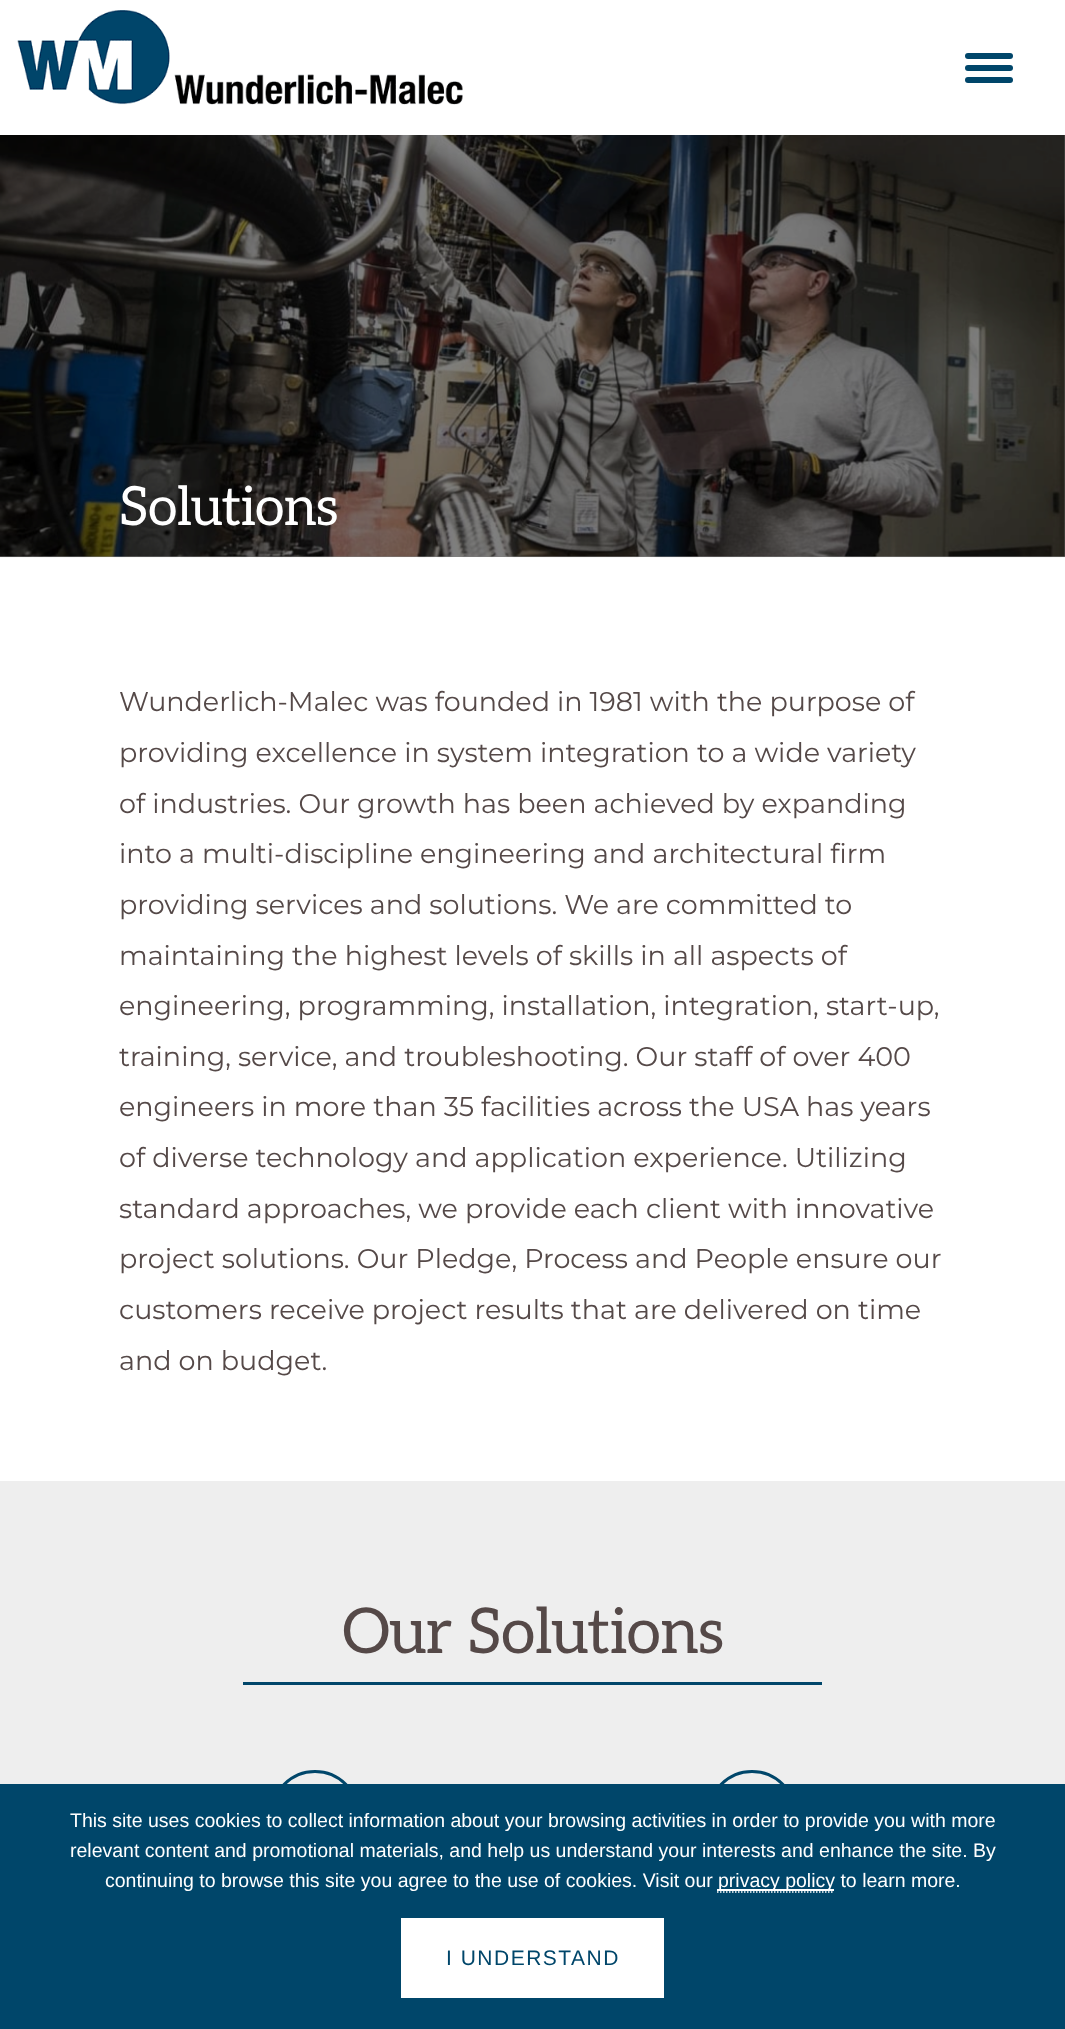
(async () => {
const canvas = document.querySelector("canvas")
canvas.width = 1065
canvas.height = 2029
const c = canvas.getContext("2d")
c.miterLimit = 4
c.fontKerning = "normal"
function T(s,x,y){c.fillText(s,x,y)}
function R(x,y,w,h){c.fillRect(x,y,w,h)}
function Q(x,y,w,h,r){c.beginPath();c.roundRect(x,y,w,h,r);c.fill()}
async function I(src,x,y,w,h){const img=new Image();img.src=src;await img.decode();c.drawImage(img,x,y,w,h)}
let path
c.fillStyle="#fff"
R(0,0,1065,2029)
c.fillStyle="#808080"
R(0,135,1065,422)
await I("1.png",17,10,446,95)
c.fillStyle="#00466a"
Q(965,53,48,6,3)
Q(965,65,48,6,3)
Q(965,77,48,6,3)
await I("2.png",0,135,1065,423)
c.letterSpacing="-0.75px"
c.font="54px Aleo"
c.fillStyle="#fff"
T("Solutions",119,525)
c.letterSpacing="0px"
c.font="27px Montserrat"
c.fillStyle="#554948"
T("Wunderlich-Malec was founded in 1981 with the purpose of",119,711)
T("providing excellence in system integration to a wide variety",119,762)
T("of industries. Our growth has been achieved by expanding",119,813)
T("into a multi-discipline engineering and architectural firm",119,863)
T("providing services and solutions. We are committed to",119,914)
T("maintaining the highest levels of skills in all aspects of",119,965)
T("engineering, programming, installation, integration, start-up,",119,1015)
T("training, service, and troubleshooting. Our staff of over 400",119,1066)
T("engineers in more than 35 facilities across the USA has years",119,1116)
T("of diverse technology and application experience. Utilizing",119,1167)
T("standard approaches, we provide each client with innovative",119,1218)
T("project solutions. Our Pledge, Process and People ensure our",119,1268)
T("customers receive project results that are delivered on time",119,1319)
T("and on budget.",119,1370)
c.fillStyle="#eee"
R(0,1481,1065,303)
c.letterSpacing="-0.75px"
c.font="63px Aleo"
c.fillStyle="#554948"
T("Our Solutions",342,1653)
c.fillStyle="#00466a"
R(243,1682,579,3)
c.beginPath()
c.arc(315,1815,43.5,0,7)
c.strokeStyle="#00466a"
c.lineWidth=3
c.stroke()
c.beginPath()
c.arc(752,1815,43.5,0,7)
c.stroke()
R(0,1784,1065,245)
c.letterSpacing="0px"
c.font="19.5px Liberation Sans"
c.fillStyle="#fff"
T("This site uses cookies to collect information about your browsing activities in order to provide you with more",70,1827)
T("relevant content and promotional materials, and help us understand your interests and enhance the site. By",70,1857)
T("continuing to browse this site you agree to the use of cookies. Visit our",105,1887)
path = new Path2D("M717 1892h117")
c.strokeStyle="#fff"
c.lineWidth=1.5
c.setLineDash([1.5,1.5])
c.stroke(path)
R(717,1889,117,2)
T("privacy policy to learn more.",718,1887)
R(401,1918,263,80)
c.letterSpacing="1.5px"
c.font="21px Liberation Sans"
c.fillStyle="#00466a"
T("I UNDERSTAND",446,1965)
})()
